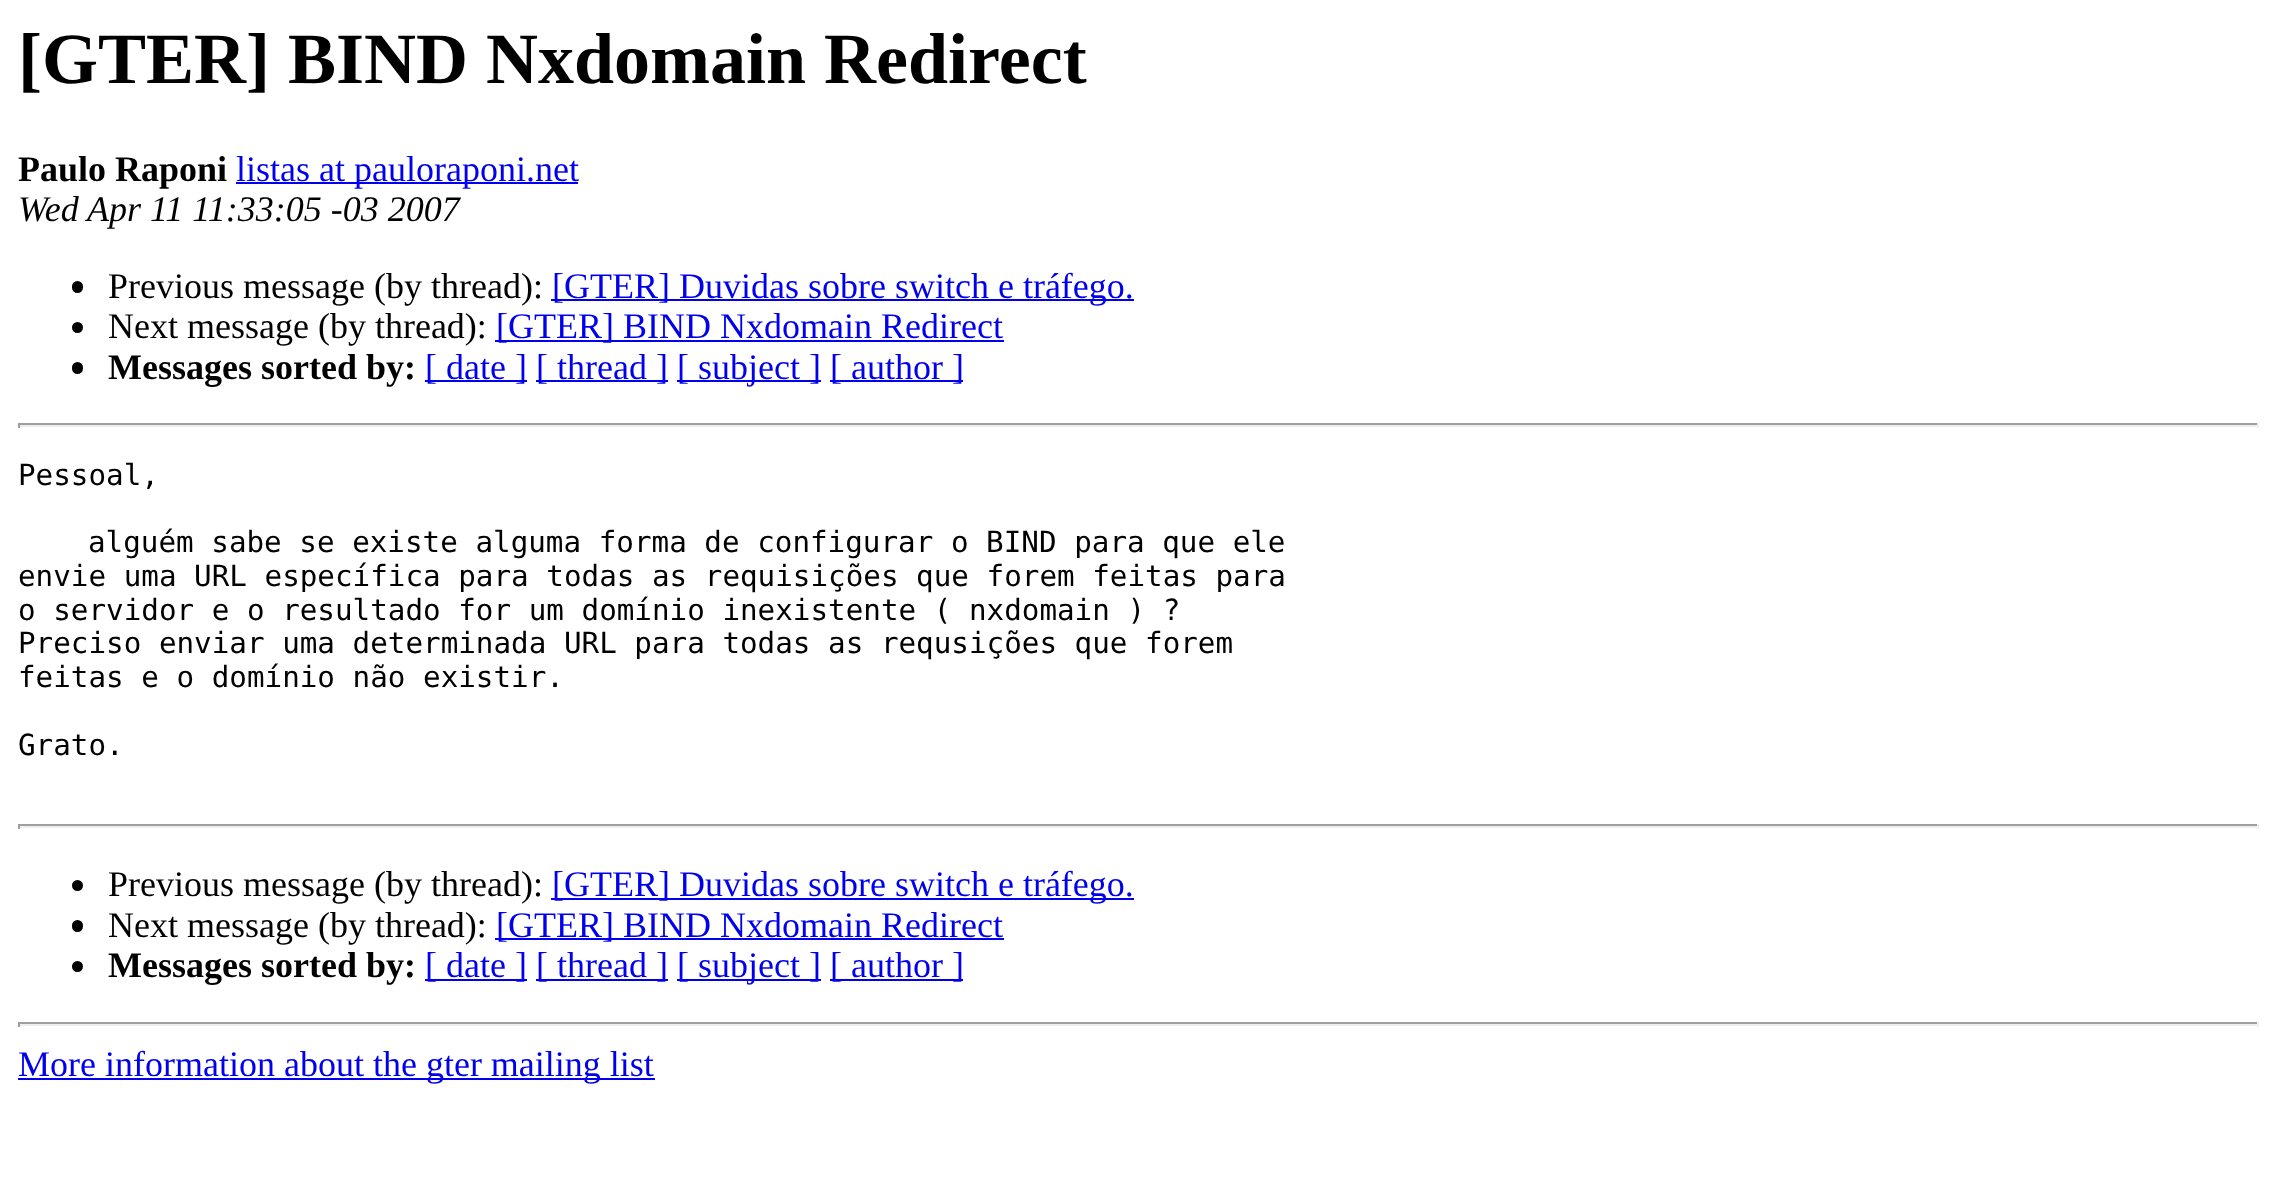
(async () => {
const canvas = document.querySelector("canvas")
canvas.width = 2277
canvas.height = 1177
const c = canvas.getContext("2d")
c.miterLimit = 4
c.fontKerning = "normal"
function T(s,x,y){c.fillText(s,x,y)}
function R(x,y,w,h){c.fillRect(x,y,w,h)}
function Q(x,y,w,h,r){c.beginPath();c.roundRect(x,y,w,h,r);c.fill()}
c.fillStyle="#fff"
R(0,0,2277,1177)
c.font="bold 72px Liberation Serif"
c.fillStyle="#000"
T("[GTER] BIND Nxdomain Redirect",18,83)
c.font="bold 36px Liberation Serif"
T("Paulo Raponi",18,181)
c.fillStyle="#00e"
R(236,182,342,2)
c.font="36px Liberation Serif"
T("listas at pauloraponi.net",236,181)
c.font="italic 36px Liberation Serif"
c.fillStyle="#000"
T("Wed Apr 11 11:33:05 -03 2007",18,221)
Q(72,281,11,12,5.5)
c.font="36px Liberation Serif"
T("Previous message (by thread):",108,298)
c.fillStyle="#00e"
R(551,299,583,2)
T("[GTER] Duvidas sobre switch e tráfego.",552,298)
c.fillStyle="#000"
c.beginPath()
c.arc(77.5,327.5,5.5,0,7)
c.fill()
T("Next message (by thread):",108,338)
c.fillStyle="#00e"
R(495,340,509,2)
T("[GTER] BIND Nxdomain Redirect",496,338)
c.fillStyle="#000"
Q(72,362,11,12,5.5)
c.font="bold 36px Liberation Serif"
T("Messages sorted by:",108,379)
c.fillStyle="#00e"
R(425,380,102,2)
c.font="36px Liberation Serif"
T("[ date ]",425,379)
R(536,380,132,2)
T("[ thread ]",536,379)
R(677,380,144,2)
T("[ subject ]",677,379)
R(830,380,133,2)
T("[ author ]",830,379)
c.fillStyle="#9f9f9f"
R(18,423,2241,2)
c.fillStyle="#eee"
R(2257,423,2,5)
R(18,425,2241,2)
c.fillStyle="#9f9f9f"
R(18,423,2,5)
c.font="29.25px DejaVu Sans Mono"
c.fillStyle="#000"
T("Pessoal,",18,485)
T("alguém sabe se existe alguma forma de configurar o BIND para que ele",88,552)
T("envie uma URL específica para todas as requisições que forem feitas para",18,586)
T("o servidor e o resultado for um domínio inexistente ( nxdomain ) ?",18,620)
T("Preciso enviar uma determinada URL para todas as requsições que forem",18,653)
T("feitas e o domínio não existir.",18,687)
T("Grato.",18,755)
c.fillStyle="#9f9f9f"
R(18,824,2241,2)
c.fillStyle="#eee"
R(2257,824,2,5)
R(18,826,2241,2)
c.fillStyle="#9f9f9f"
R(18,824,2,5)
c.fillStyle="#000"
c.beginPath()
c.arc(77.5,885.5,5.5,0,7)
c.fill()
c.font="36px Liberation Serif"
T("Previous message (by thread):",108,896)
c.fillStyle="#00e"
R(551,898,583,2)
T("[GTER] Duvidas sobre switch e tráfego.",552,896)
c.fillStyle="#000"
Q(72,920,11,12,5.5)
T("Next message (by thread):",108,937)
c.fillStyle="#00e"
R(495,938,509,2)
T("[GTER] BIND Nxdomain Redirect",496,937)
c.fillStyle="#000"
c.beginPath()
c.arc(77.5,966.5,5.5,0,7)
c.fill()
c.font="bold 36px Liberation Serif"
T("Messages sorted by:",108,977)
c.fillStyle="#00e"
R(425,979,102,2)
c.font="36px Liberation Serif"
T("[ date ]",425,977)
R(536,979,132,2)
T("[ thread ]",536,977)
R(677,979,144,2)
T("[ subject ]",677,977)
R(830,979,133,2)
T("[ author ]",830,977)
c.fillStyle="#9f9f9f"
R(18,1022,2241,2)
c.fillStyle="#eee"
R(2257,1022,2,5)
R(18,1024,2241,2)
c.fillStyle="#9f9f9f"
R(18,1022,2,5)
c.fillStyle="#00e"
R(18,1078,637,2)
T("More information about the gter mailing list",18,1076)
})()
